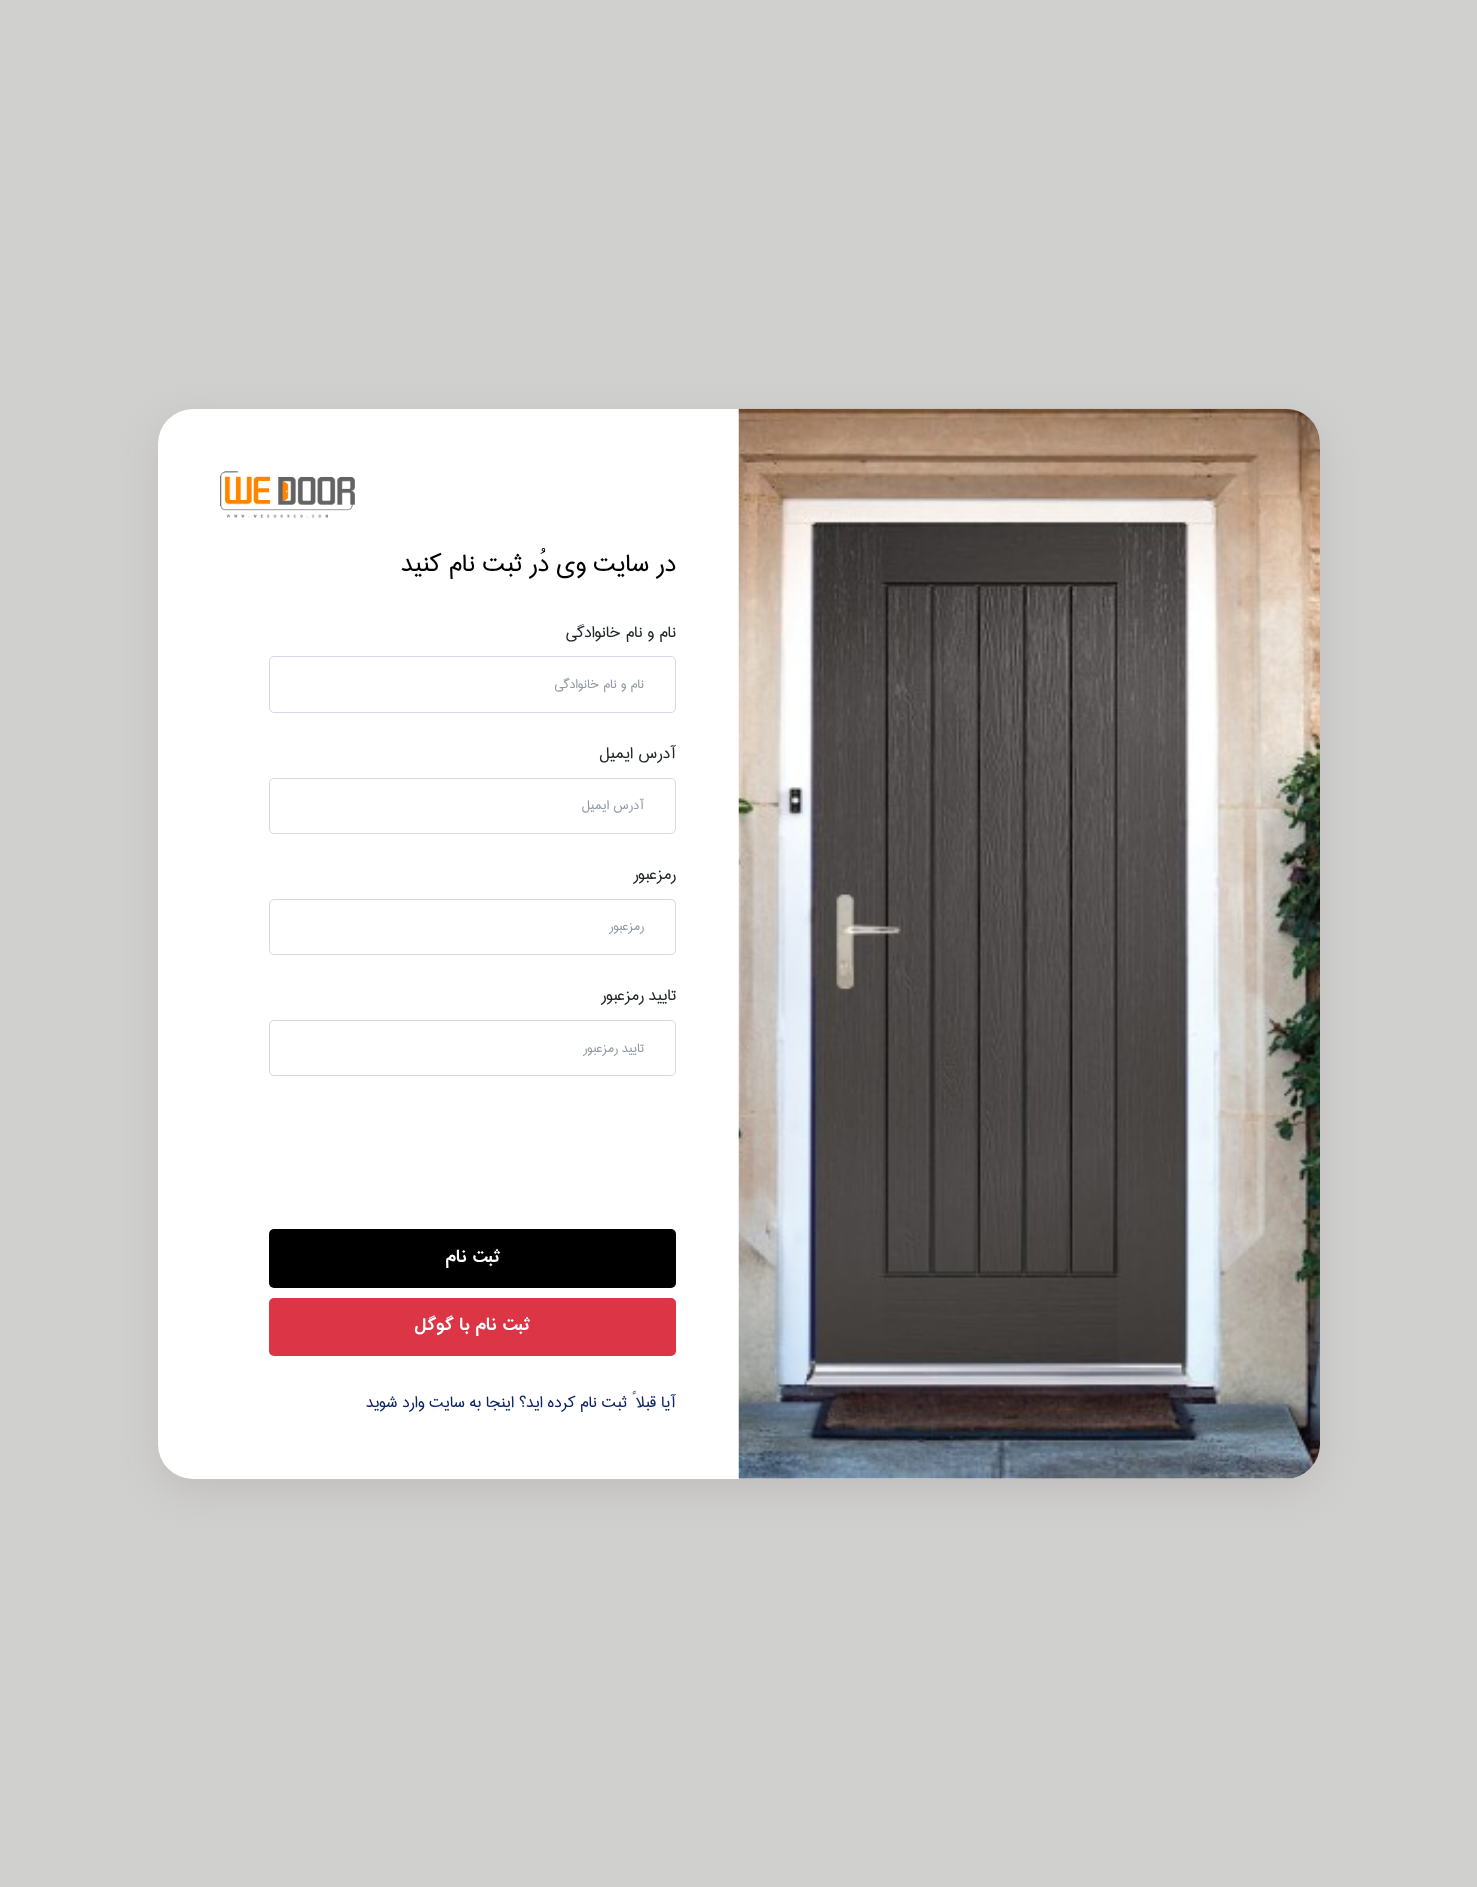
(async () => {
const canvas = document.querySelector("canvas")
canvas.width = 1477
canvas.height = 1887
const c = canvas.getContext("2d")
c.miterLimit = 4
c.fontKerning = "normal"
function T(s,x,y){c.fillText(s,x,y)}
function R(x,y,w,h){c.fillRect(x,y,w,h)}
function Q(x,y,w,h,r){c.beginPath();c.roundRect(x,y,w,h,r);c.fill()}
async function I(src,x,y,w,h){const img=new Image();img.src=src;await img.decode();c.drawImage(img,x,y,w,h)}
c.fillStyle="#d0d0ce"
R(0,0,1477,1887)
c.fillStyle="#aca8a86e"
c.filter="blur(19px)"
c.beginPath()
c.roundRect(158,421,1162,1070,35)
c.fill()
c.filter="none"
c.fillStyle="#fff"
Q(158,409,1162,1070,35)
await I("1.png",738,408,582,1071)
await I("2.png",220,471,135,47)
c.direction="rtl"
c.font="31.25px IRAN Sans"
c.fillStyle="#000"
T("در سایت وی دُر ثبت نام کنید",676,571)
c.font="20px IRAN Sans"
c.fillStyle="#212529"
T("نام و نام خانوادگی",676,637)
c.beginPath()
c.roundRect(269.5,656.5,406,56,4.5)
c.strokeStyle="#d5dae2"
c.stroke()
c.font="16.25px IRAN Sans"
c.fillStyle="#919aa3"
T("نام و نام خانوادگی",644,688)
c.font="20px IRAN Sans"
c.fillStyle="#212529"
T("آدرس ایمیل",676,758)
c.beginPath()
c.roundRect(269.5,778.5,406,55,4.5)
c.stroke()
c.font="16.25px IRAN Sans"
c.fillStyle="#919aa3"
T("آدرس ایمیل",644,809)
c.font="20px IRAN Sans"
c.fillStyle="#212529"
T("رمزعبور",676,879)
c.beginPath()
c.roundRect(269.5,899.5,406,55,4.5)
c.stroke()
c.font="16.25px IRAN Sans"
c.fillStyle="#919aa3"
T("رمزعبور",644,930)
c.font="20px IRAN Sans"
c.fillStyle="#212529"
T("تایید رمزعبور",676,1000)
c.beginPath()
c.roundRect(269.5,1020.5,406,55,4.5)
c.stroke()
c.font="16.25px IRAN Sans"
c.fillStyle="#919aa3"
T("تایید رمزعبور",644,1052)
c.fillStyle="#000"
Q(269,1229,407,59,5)
c.font="bold 21.25px IRAN Sans"
c.fillStyle="#fff"
T("ثبت نام",500,1262)
c.fillStyle="#dc3545"
Q(269,1298,407,58,5)
c.fillStyle="#fff"
T("ثبت نام با گوگل",530,1330)
c.font="20px IRAN Sans"
c.fillStyle="#0d2366"
T("آیا قبلا ً ثبت نام کرده اید؟",676,1407)
T("اینجا به سایت وارد شوید",514,1407)
})()
